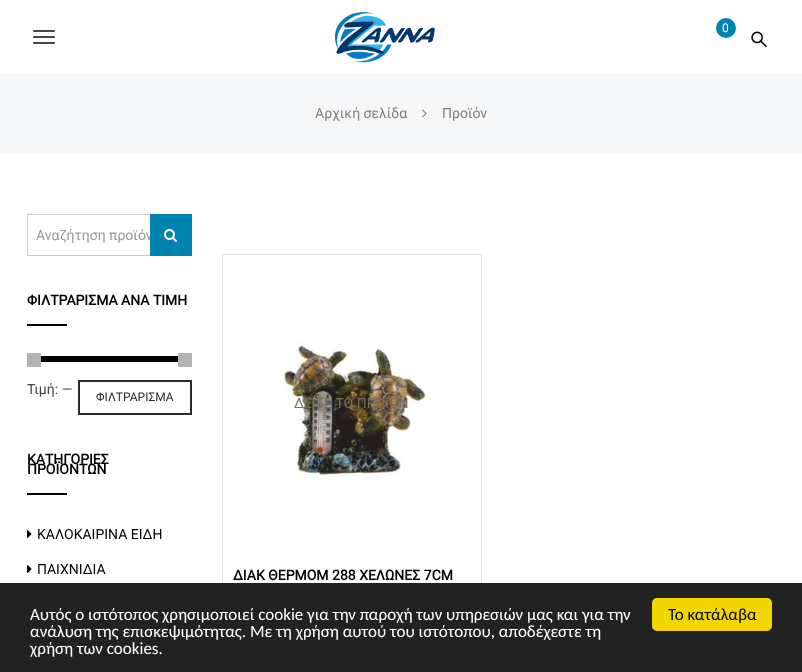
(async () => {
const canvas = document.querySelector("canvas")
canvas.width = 802
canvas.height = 672
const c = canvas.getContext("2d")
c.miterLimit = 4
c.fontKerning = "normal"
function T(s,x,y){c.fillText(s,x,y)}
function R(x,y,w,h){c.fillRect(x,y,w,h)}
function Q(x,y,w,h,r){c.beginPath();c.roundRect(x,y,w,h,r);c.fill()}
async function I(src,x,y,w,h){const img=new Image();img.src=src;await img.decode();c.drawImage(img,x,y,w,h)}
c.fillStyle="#fff"
R(0,0,802,672)
await I("1.png",335,12,100,51)
c.fillStyle="#0083ae"
c.beginPath()
c.arc(726,28,10,0,7)
c.fill()
c.font="12px Roboto"
c.fillStyle="#fff"
T("0",722,32)
c.fillStyle="#464646"
Q(33,30,22,2,1)
Q(33,36,22,2,1)
Q(33,42,22,2,1)
await I("2.png",751,31,16,17)
c.fillStyle="#f5f6f8"
R(0,74,802,80)
c.font="14px Roboto"
c.fillStyle="#7e7e7e"
T("Αρχική σελίδα",315,118)
await I("3.png",422,109,5,9)
T("Προϊόν",442,118)
c.strokeStyle="#ccc"
c.strokeRect(27.5,214.5,164,41)
c.fillStyle="#999"
T("Αναζήτηση προϊόν",36,240)
c.fillStyle="#0083ae"
R(150,214,42,42)
await I("4.png",164,229,13,13)
c.font="bold 14px Roboto"
c.fillStyle="#000"
T("ΦΙΛΤΡΑΡΙΣΜΑ ΑΝΑ ΤΙΜΗ",27,305)
R(27,324,40,2)
c.fillStyle="#b2b2b2"
R(27,353,14,14)
c.fillStyle="#000"
R(41,356,137,6)
c.fillStyle="#b2b2b2"
R(178,353,14,14)
c.font="14px Roboto"
c.fillStyle="#464646"
T("Τιμή: —",27,394)
c.strokeStyle="#2b2b2b"
c.lineWidth=2
c.strokeRect(79,381,112,33)
c.font="12px Roboto"
c.fillStyle="#2b2b2b"
T("ΦΙΛΤΡΑΡΙΣΜΑ",96,401)
c.font="bold 14px Roboto"
c.fillStyle="#000"
T("ΚΑΤΗΓΟΡΙΕΣ",27,464)
T("ΠΡΟΪΟΝΤΩΝ",27,474)
R(27,493,40,2)
await I("5.png",27,530,5,8)
c.font="14px Roboto"
T("ΚΑΛΟΚΑΙΡΙΝΑ ΕΙΔΗ",37,539)
await I("5.png",27,565,5,8)
T("ΠΑΙΧΝΙΔΙΑ",37,574)
c.strokeStyle="#e5e5e5"
c.lineWidth=1
c.strokeRect(222.5,254.5,259,380)
await I("6.png",283,341,153,140)
c.fillStyle="#796e5b"
T("ΔΕΙΤΕ ΤΟ ΠΡΟΪΟΝ",294,408)
c.font="bold 14px Roboto"
c.fillStyle="#000"
T("ΔΙΑΚ ΘΕΡΜΟΜ 288 ΧΕΛΩΝΕΣ 7CM",233,580)
c.fillStyle="#222"
R(0,583,802,89)
c.font="17px Carlito"
c.fillStyle="#fff"
T("Αυτός ο ιστότοπος χρησιμοποιεί cookie για την παροχή των υπηρεσιών μας και για την",30,620)
T("ανάλυση της επισκεψιμότητας. Με τη χρήση αυτού του ιστότοπου, αποδέχεστε τη",30,637)
T("χρήση των cookies.",30,654)
c.fillStyle="#f1d600"
Q(652,598,120,33,5)
c.fillStyle="#000"
T("Το κατάλαβα",668,620)
})()
